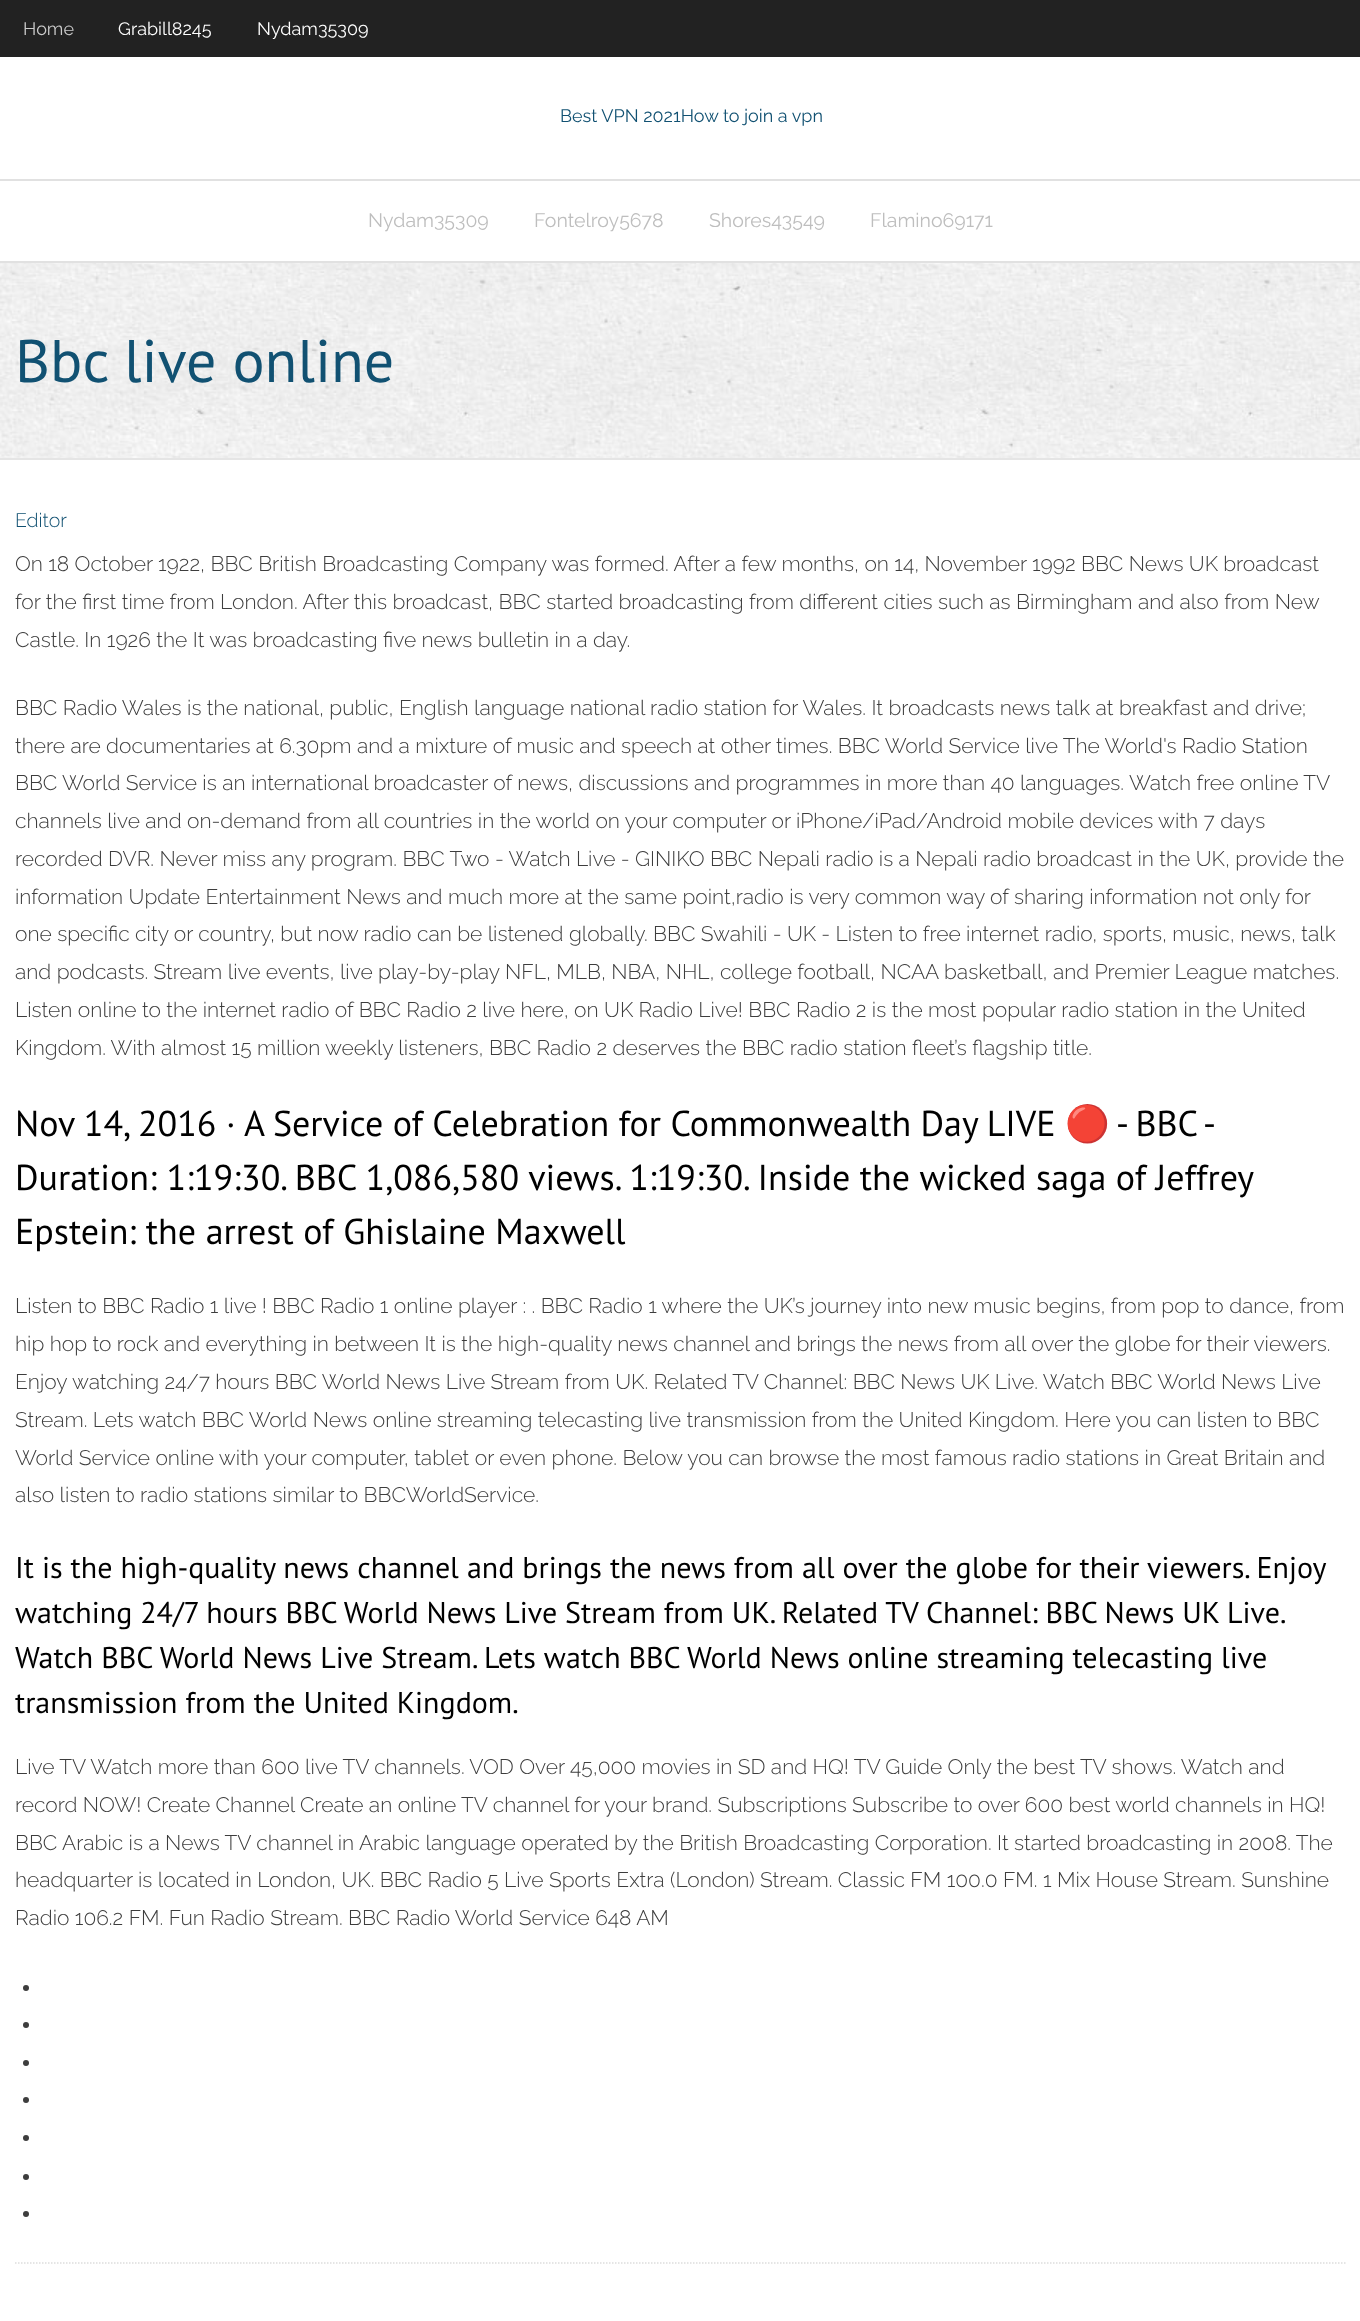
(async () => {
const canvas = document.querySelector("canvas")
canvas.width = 1360
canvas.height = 2321
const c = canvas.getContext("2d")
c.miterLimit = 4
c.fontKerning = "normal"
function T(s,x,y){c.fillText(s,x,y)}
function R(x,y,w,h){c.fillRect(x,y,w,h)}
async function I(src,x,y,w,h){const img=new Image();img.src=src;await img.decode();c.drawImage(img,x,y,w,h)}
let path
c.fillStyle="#fff"
R(0,0,1360,2321)
c.fillStyle="#222"
R(0,0,1360,57)
c.font="18px Raleway"
c.fillStyle="#ccc"
T("Home",23,35)
c.fillStyle="#fff"
T("Grabill8245",118,35)
T("Nydam35309",257,35)
c.fillStyle="#115172"
T("Best VPN 2021How to join a vpn",560,122)
c.fillStyle="#e1e1e1"
R(0,179,1360,2)
R(0,261,1360,2)
c.font="19.5px Raleway"
c.fillStyle="#bebebe"
T("Nydam35309",368,227)
T("Fontelroy5678",534,227)
T("Shores43549",709,227)
T("Flamino69171",870,227)
await I("1.png",0,263,1360,195)
c.fillStyle="#e5e5e5"
R(0,458,1360,2)
c.font="60px PT Sans"
c.fillStyle="#115172"
T("Bbc live online",15,382)
path = new Path2D("M15 2263h1330.5")
c.strokeStyle="#ddd"
c.lineWidth=1.5
c.setLineDash([1.5,1.5])
c.stroke(path)
c.font="300 19.5px Raleway"
T("Editor",15,527)
c.font="300 21px Raleway"
c.fillStyle="#3d3d3d"
T("On 18 October 1922, BBC British Broadcasting Company was formed. After a few months, on 14, November 1992 BBC News UK broadcast",15,571)
T("for the first time from London. After this broadcast, BBC started broadcasting from different cities such as Birmingham and also from New",15,609)
T("Castle. In 1926 the It was broadcasting five news bulletin in a day.",15,647)
T("BBC Radio Wales is the national, public, English language national radio station for Wales. It broadcasts news talk at breakfast and drive;",15,715)
T("there are documentaries at 6.30pm and a mixture of music and speech at other times. BBC World Service live The World's Radio Station",15,753)
T("BBC World Service is an international broadcaster of news, discussions and programmes in more than 40 languages.",15,790)
T("Watch free online TV",1129,790)
T("channels live and on-demand from all countries in the world on your computer or iPhone/iPad/Android mobile devices with 7 days",15,828)
T("recorded DVR. Never miss any program. BBC Two - Watch Live - GINIKO BBC Nepali radio is a Nepali radio broadcast in the UK, provide the",15,866)
T("information Update Entertainment News and much more at the same point,radio is very common way of sharing information not only for",15,904)
T("one specific city or country, but now radio can be listened globally. BBC Swahili - UK - Listen to free internet radio, sports, music, news, talk",15,941)
T("and podcasts. Stream live events, live play-by-play NFL, MLB, NBA, NHL, college football, NCAA basketball, and Premier League matches.",15,979)
T("Listen online to the internet radio of BBC Radio 2 live here, on UK Radio Live! BBC Radio 2 is the most popular radio station in the United",15,1017)
T("Kingdom. With almost 15 million weekly listeners, BBC Radio 2 deserves the BBC radio station fleet’s flagship title.",15,1055)
c.font="36px PT Sans"
c.fillStyle="#000"
T("Nov 14, 2016 ·",15,1136)
c.wordSpacing="-0.25px"
T("A Service of Celebration for Commonwealth Day LIVE",244,1136)
c.wordSpacing="0px"
c.font="36px Noto Color Emoji"
T("🔴",1065,1136)
c.wordSpacing="-0.25px"
c.font="36px PT Sans"
T("- BBC -",1116,1136)
c.wordSpacing="0px"
T("Duration: 1:19:30. BBC 1,086,580 views. 1:19:30. Inside the wicked saga of Jeffrey",15,1190)
T("Epstein: the arrest of Ghislaine Maxwell",15,1244)
c.font="300 21px Raleway"
c.fillStyle="#3d3d3d"
T("Listen to BBC Radio 1 live ! BBC Radio 1 online player : . BBC Radio 1 where the UK’s journey into new music begins, from pop to dance, from",15,1313)
T("hip hop to rock and everything in between It is the high-quality news channel and brings the news from all over the globe for their viewers.",15,1351)
T("Enjoy watching 24/7 hours BBC World News Live Stream from UK. Related TV Channel: BBC News UK Live. Watch BBC World News Live",15,1389)
T("Stream. Lets watch BBC World News online streaming telecasting live transmission from the United Kingdom. Here you can listen to BBC",15,1427)
T("World Service online with your computer, tablet or even phone. Below you can browse the most famous radio stations in Great Britain and",15,1465)
T("also listen to radio stations similar to BBCWorldService.",15,1502)
c.font="30px PT Sans"
c.fillStyle="#000"
T("It is the high-quality news channel and brings the news from all over the globe for their viewers. Enjoy",15,1578)
c.wordSpacing="-0.1px"
T("watching 24/7 hours BBC World News Live Stream from UK. Related TV Channel: BBC News UK Live.",15,1623)
c.wordSpacing="0px"
T("Watch BBC World News Live Stream. Lets watch BBC World News online streaming telecasting live",15,1668)
T("transmission from the United Kingdom.",15,1713)
c.font="300 21px Raleway"
c.fillStyle="#3d3d3d"
T("Live TV Watch more than 600 live TV channels. VOD Over 45,000 movies in SD and HQ! TV Guide Only the best TV shows. Watch and",15,1774)
T("record NOW! Create Channel Create an online TV channel for your brand. Subscriptions Subscribe to over 600 best world channels in HQ!",15,1812)
T("BBC Arabic is a News TV channel in Arabic language operated by the British Broadcasting Corporation. It started broadcasting in 2008. The",15,1850)
T("headquarter is located in London, UK. BBC Radio 5 Live Sports Extra (London) Stream. Classic FM 100.0 FM. 1 Mix House Stream. Sunshine",15,1887)
T("Radio 106.2 FM. Fun Radio Stream. BBC Radio World Service 648 AM",15,1925)
c.beginPath()
c.arc(26,1988,3,0,7)
c.fill()
c.beginPath()
c.arc(26,2025,3,0,7)
c.fill()
c.beginPath()
c.arc(26,2063,3,0,7)
c.fill()
c.beginPath()
c.arc(26,2100,3,0,7)
c.fill()
c.beginPath()
c.arc(26,2138,3,0,7)
c.fill()
c.beginPath()
c.arc(26,2177,3,0,7)
c.fill()
c.beginPath()
c.arc(26,2214,3,0,7)
c.fill()
})()
